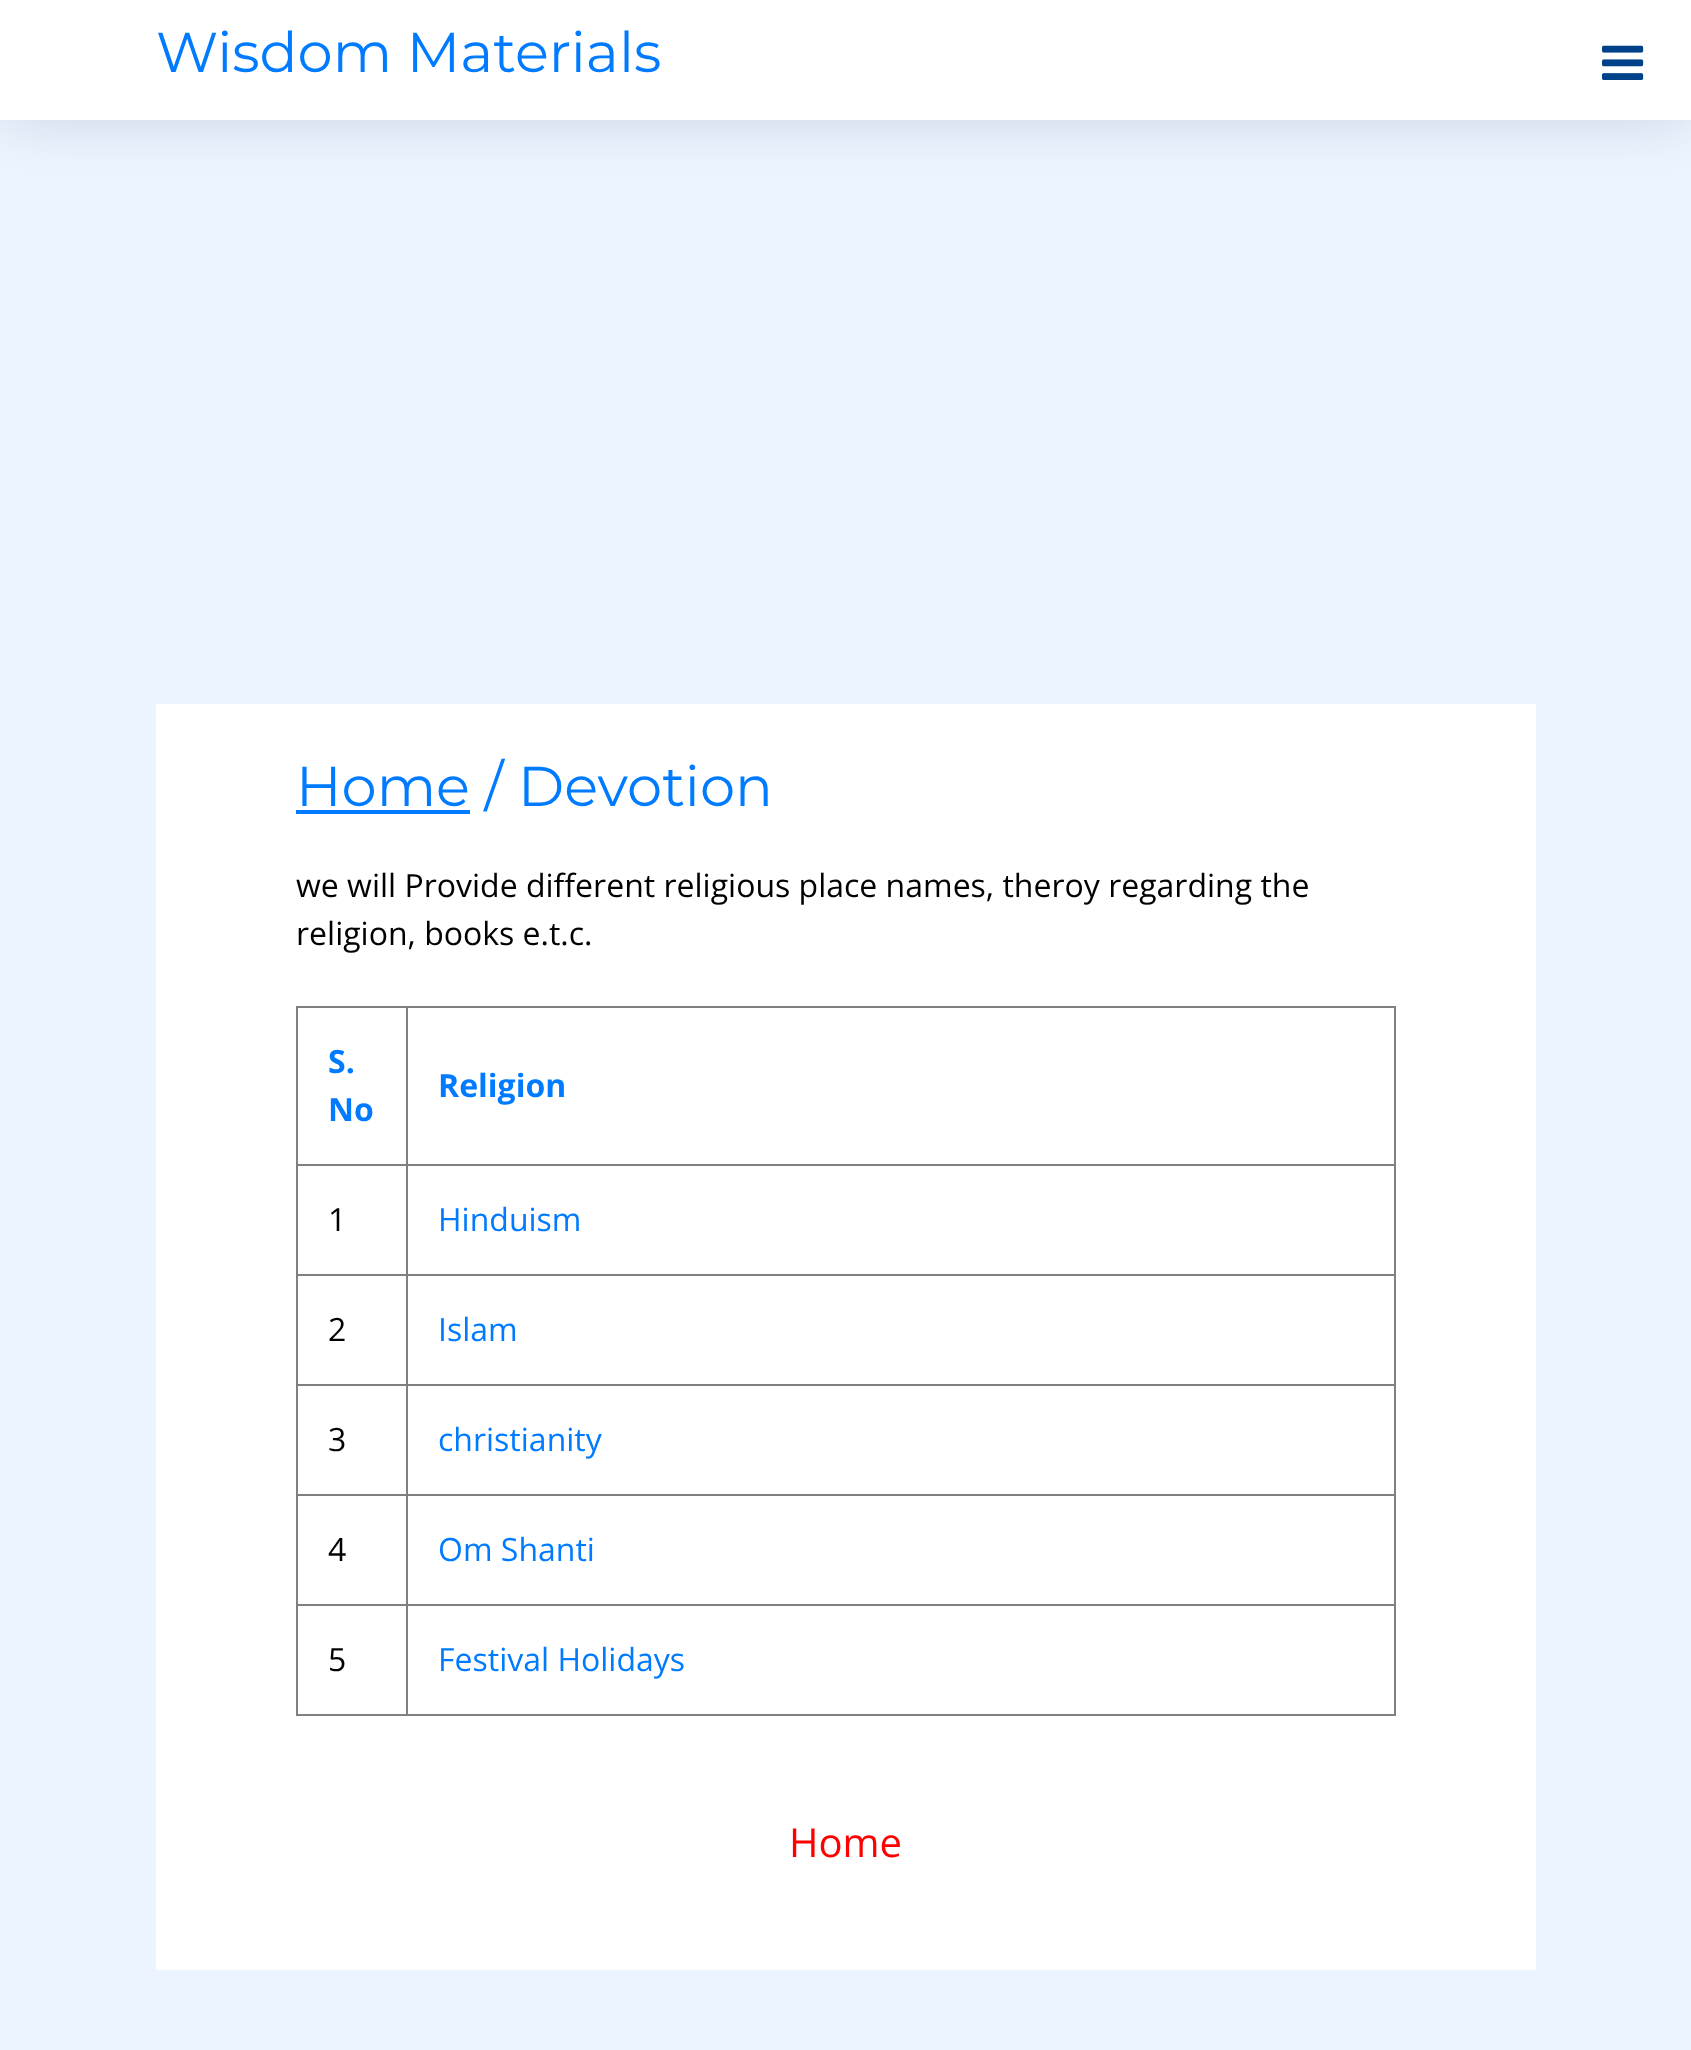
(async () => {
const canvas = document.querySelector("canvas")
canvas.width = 1691
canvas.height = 2050
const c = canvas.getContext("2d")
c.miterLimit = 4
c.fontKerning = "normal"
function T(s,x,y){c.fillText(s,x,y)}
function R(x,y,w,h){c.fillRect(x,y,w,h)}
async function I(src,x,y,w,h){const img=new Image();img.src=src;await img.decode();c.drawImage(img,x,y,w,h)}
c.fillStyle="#ecf5ff"
R(0,0,1691,2050)
c.fillStyle="#7f89a14d"
c.filter="blur(30px)"
c.beginPath()
c.rect(0,0,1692,120)
c.fill()
c.filter="none"
c.fillStyle="#fff"
R(0,0,1691,120)
c.font="56px Montserrat"
c.fillStyle="#007bff"
T("Wisdom Materials",156,72)
await I("1.png",1602,45,42,35)
c.fillStyle="#fff"
R(156,704,1380,1266)
c.fillStyle="#007bff"
R(296,810,174,4)
T("Home / Devotion",296,806)
c.font="32px Open Sans"
c.fillStyle="#000"
T("we will Provide different religious place names, theroy regarding the",296,897)
T("religion, books e.t.c.",296,945)
c.fillStyle="#808080"
R(296,1006,1100,2)
R(1394,1006,2,710)
R(296,1714,1100,2)
R(296,1006,2,710)
c.font="bold 32px Open Sans"
c.fillStyle="#007bff"
T("S.",328,1073)
T("No",328,1121)
c.fillStyle="#808080"
R(406,1164,990,2)
R(406,1274,990,2)
R(406,1384,990,2)
R(406,1494,990,2)
R(406,1604,990,2)
R(406,1604,2,112)
R(296,1604,112,2)
R(406,1494,2,112)
R(296,1494,112,2)
R(406,1384,2,112)
R(296,1384,112,2)
R(406,1274,2,112)
R(296,1274,112,2)
R(406,1164,2,112)
R(296,1164,112,2)
R(406,1006,2,160)
c.fillStyle="#007bff"
T("Religion",438,1097)
c.font="32px Open Sans"
c.fillStyle="#000"
T("1",328,1231)
c.fillStyle="#007bff"
T("Hinduism",438,1231)
c.fillStyle="#000"
T("2",328,1341)
c.fillStyle="#007bff"
T("Islam",438,1341)
c.fillStyle="#000"
T("3",328,1451)
c.fillStyle="#007bff"
T("christianity",438,1451)
c.fillStyle="#000"
T("4",328,1561)
c.fillStyle="#007bff"
T("Om Shanti",438,1561)
c.fillStyle="#000"
T("5",328,1671)
c.fillStyle="#007bff"
T("Festival Holidays",438,1671)
c.font="40px Open Sans"
c.fillStyle="#f00"
T("Home",789,1857)
})()
